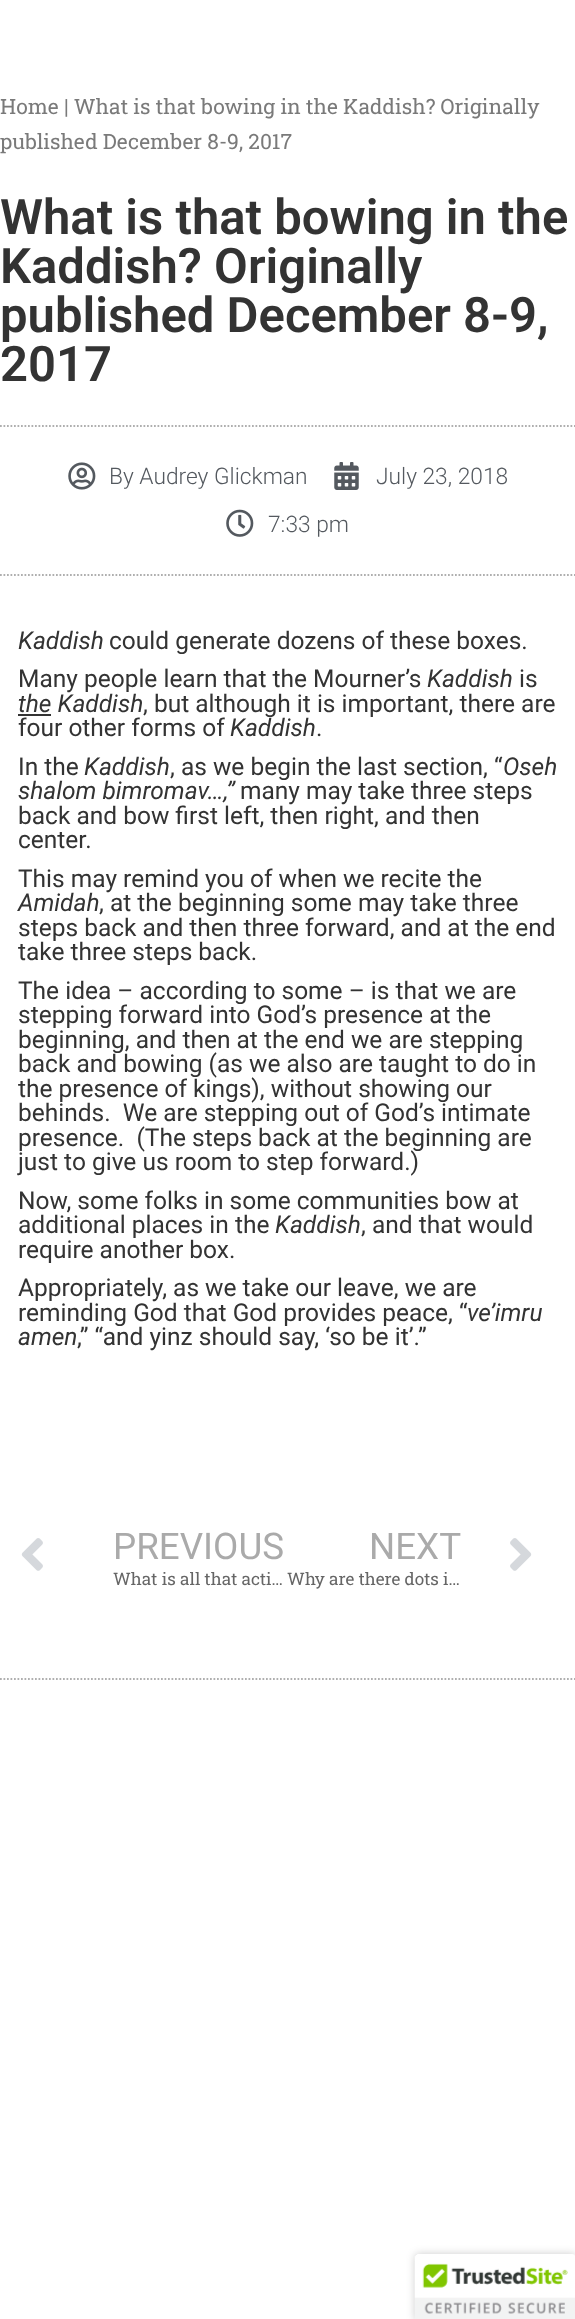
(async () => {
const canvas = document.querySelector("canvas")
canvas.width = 575
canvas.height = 2319
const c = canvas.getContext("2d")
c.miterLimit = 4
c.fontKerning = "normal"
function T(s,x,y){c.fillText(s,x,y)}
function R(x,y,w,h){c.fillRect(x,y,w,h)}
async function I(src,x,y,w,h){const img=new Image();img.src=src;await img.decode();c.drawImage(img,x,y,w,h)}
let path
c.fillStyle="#fff"
R(0,0,575,2319)
c.font="21px Roboto Slab"
c.fillStyle="#7a7a7a"
T("Home | What is that bowing in the Kaddish? Originally",0,114)
T("published December 8-9, 2017",0,149)
c.font="600 49px Roboto"
c.fillStyle="#333"
T("What is that bowing in the",0,234)
T("Kaddish? Originally",0,283)
T("published December 8-9,",0,332)
T("2017",0,381)
path = new Path2D("M0 426h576")
c.strokeStyle="#afafaf"
c.lineWidth=1.8
c.setLineDash([1.75,1.75])
c.stroke(path)
path = new Path2D("M0 575h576")
c.stroke(path)
await I("1.png",68,462,28,28)
c.font="300 22.75px Roboto"
c.fillStyle="#54595f"
T("By Audrey Glickman",109,484)
await I("2.png",334,462,25,28)
T("July 23, 2018",376,484)
await I("3.png",226,509,28,28)
T("7:33 pm",268,532)
c.font="italic 24.5px Roboto"
c.fillStyle="#333"
T("Kaddish",18,649)
c.font="24.5px Roboto"
T("could generate dozens of these boxes.",109,649)
T("Many people learn that the Mourner’s",18,687)
c.font="italic 24.5px Roboto"
T("Kaddish",427,687)
c.font="24.5px Roboto"
T("is",519,687)
c.font="italic 24.5px Roboto"
T("the Kaddish",18,712)
R(18,714,33,2)
c.font="24.5px Roboto"
T(", but although it is important, there are",143,712)
T("four other forms of",18,736)
c.font="italic 24.5px Roboto"
T("Kaddish",230,736)
c.font="24.5px Roboto"
T(".",316,736)
T("In the",18,775)
c.font="italic 24.5px Roboto"
T("Kaddish",84,775)
c.font="24.5px Roboto"
T(", as we begin the last section, “",170,775)
c.font="italic 24.5px Roboto"
T("Oseh",503,775)
T("shalom bimromav…,”",18,799)
c.font="24.5px Roboto"
T("many may take three steps",240,799)
T("back and bow first left, then right, and then",18,824)
T("center.",18,848)
T("This may remind you of when we recite the",18,887)
c.font="italic 24.5px Roboto"
T("Amidah",18,911)
c.font="24.5px Roboto"
T(", at the beginning some may take three",99,911)
T("steps back and then three forward, and at the end",18,936)
T("take three steps back.",18,960)
T("The idea – according to some – is that we are",18,999)
T("stepping forward into God’s presence at the",18,1023)
T("beginning, and then at the end we are stepping",18,1048)
T("back and bowing (as we also are taught to do in",18,1072)
T("the presence of kings), without showing our",18,1097)
T("behinds.  We are stepping out of God’s intimate",18,1121)
T("presence.  (The steps back at the beginning are",18,1146)
T("just to give us room to step forward.)",18,1170)
T("Now, some folks in some communities bow at",18,1209)
T("additional places in the",18,1233)
c.font="italic 24.5px Roboto"
T("Kaddish",275,1233)
c.font="24.5px Roboto"
T(", and that would",361,1233)
T("require another box.",18,1258)
T("Appropriately, as we take our leave, we are",18,1296)
T("reminding God that God provides peace, “",18,1321)
c.font="italic 24.5px Roboto"
T("ve’imru",467,1321)
T("amen",18,1345)
c.font="24.5px Roboto"
T(",” “and yinz should say, ‘so be it’.”",77,1345)
await I("4.png",21,1538,22,33)
c.font="36.75px Roboto"
c.fillStyle="#aaa"
T("PREVIOUS",113,1559)
c.font="17.15px Roboto Slab"
c.fillStyle="#666"
T("What is all that acti… Why are there dots i…",113,1585)
c.font="36.75px Roboto"
c.fillStyle="#aaa"
T("NEXT",369,1559)
await I("5.png",510,1538,22,33)
path = new Path2D("M0 1679h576")
c.stroke(path)
c.fillStyle="#00000033"
c.filter="blur(4.5px)"
c.beginPath()
c.roundRect(415,2254,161,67,4)
c.fill()
c.filter="none"
c.fillStyle="#fff"
path = new Path2D("M419 2254h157v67h-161v-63c0-2 2-4 4-4z")
c.fill(path)
await I("6.png",414,2254,161,65)
})()
